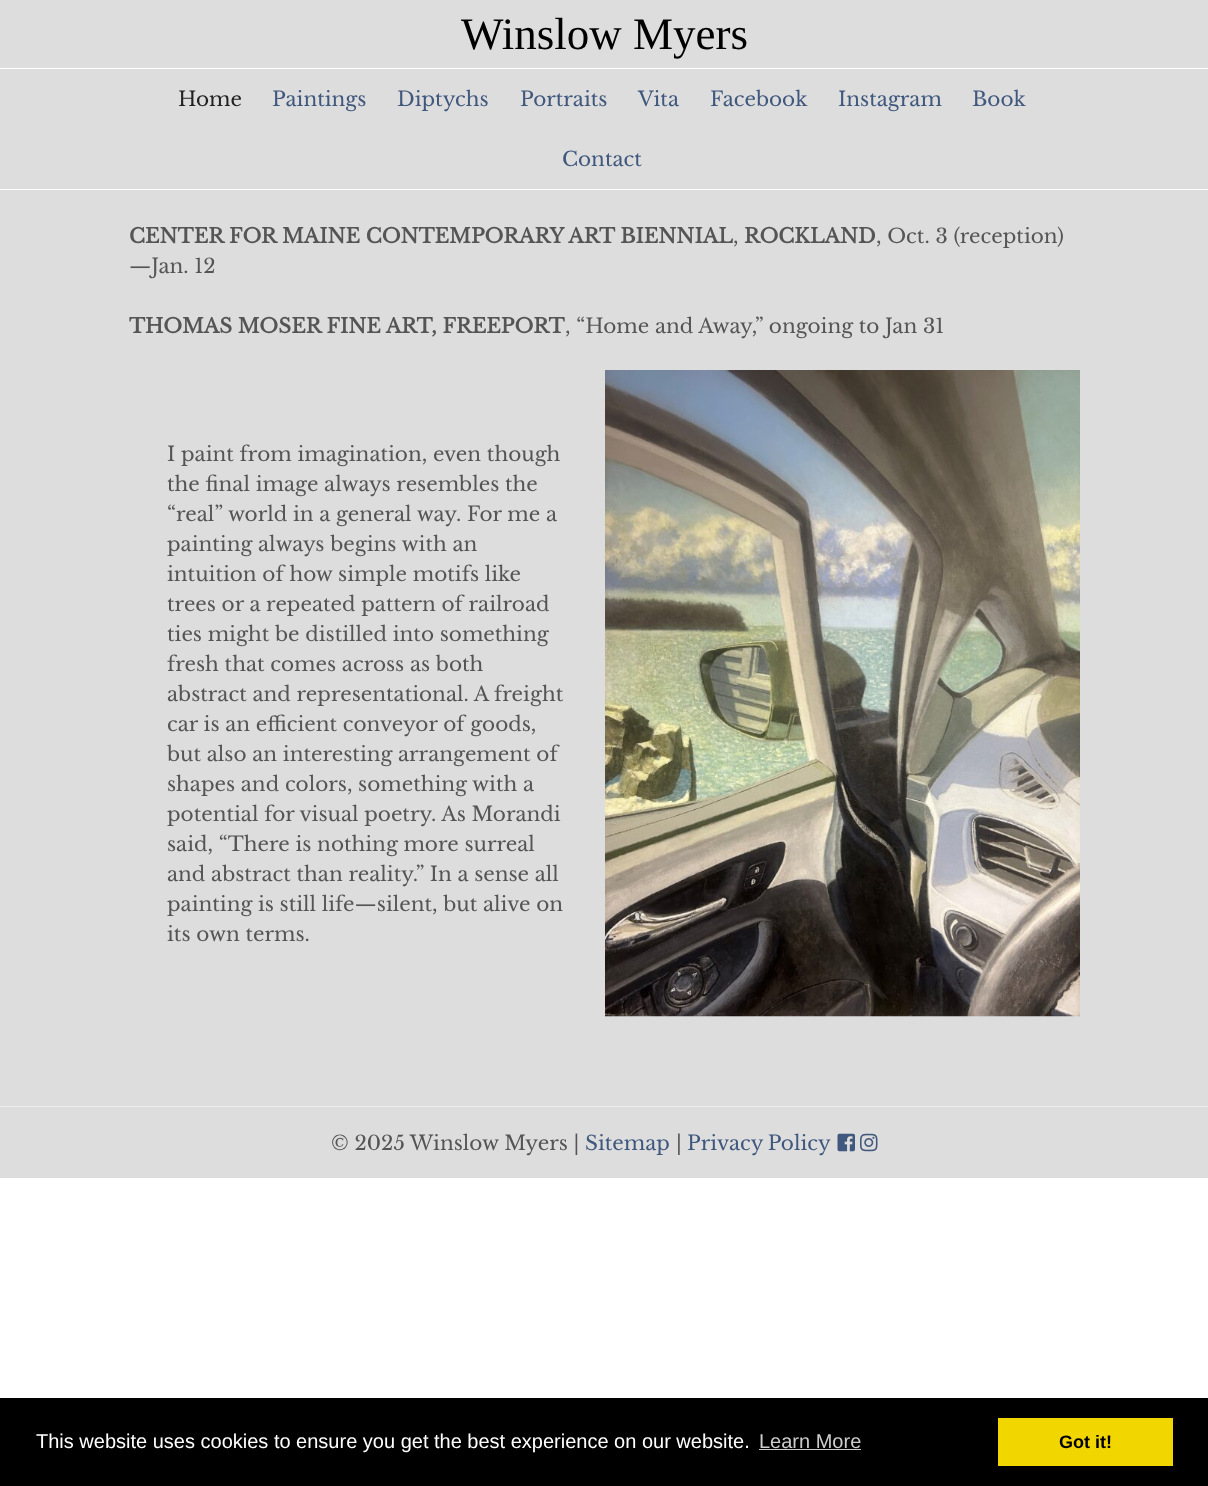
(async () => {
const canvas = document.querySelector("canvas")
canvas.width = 1208
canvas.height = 1486
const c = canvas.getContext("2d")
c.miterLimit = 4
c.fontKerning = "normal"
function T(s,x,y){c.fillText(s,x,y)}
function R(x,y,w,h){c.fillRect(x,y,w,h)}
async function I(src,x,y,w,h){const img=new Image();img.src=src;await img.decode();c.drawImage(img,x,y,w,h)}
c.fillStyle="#fff"
R(0,0,1208,1486)
c.fillStyle="#ddd"
R(0,0,1208,68)
c.font="45px Liberation Serif"
c.fillStyle="#000"
T("Winslow Myers",461,49)
c.fillStyle="#ddd"
R(0,69,1208,120)
c.font="20px Libre Baskerville"
c.fillStyle="#222"
T("Home",178,106)
c.fillStyle="#41587e"
T("Paintings",272,106)
T("Diptychs",397,106)
T("Portraits",520,106)
T("Vita",638,106)
T("Facebook",710,106)
T("Instagram",838,106)
T("Book",972,106)
T("Contact",562,166)
c.fillStyle="#ddd"
R(0,190,1208,916)
c.font="bold 20px Libre Baskerville"
c.fillStyle="#555"
T("CENTER FOR MAINE CONTEMPORARY ART BIENNIAL",129,243)
c.font="20px Libre Baskerville"
T(",",733,243)
c.font="bold 20px Libre Baskerville"
T("ROCKLAND",744,243)
c.font="20px Libre Baskerville"
T(", Oct. 3 (reception)",876,243)
T("—Jan. 12",129,273)
c.font="bold 20px Libre Baskerville"
T("THOMAS MOSER FINE ART, FREEPORT",129,333)
c.font="20px Libre Baskerville"
T(", “Home and Away,” ongoing to Jan 31",565,333)
T("I paint from imagination, even though",167,461)
T("the final image always resembles the",167,491)
T("“real” world in a general way. For me a",167,521)
T("painting always begins with an",167,551)
T("intuition of how simple motifs like",167,581)
T("trees or a repeated pattern of railroad",167,611)
T("ties might be distilled into something",167,641)
T("fresh that comes across as both",167,671)
T("abstract and representational. A freight",167,701)
T("car is an efficient conveyor of goods,",167,731)
T("but also an interesting arrangement of",167,761)
T("shapes and colors, something with a",167,791)
T("potential for visual poetry. As Morandi",167,821)
T("said, “There is nothing more surreal",167,851)
T("and abstract than reality.” In a sense all",167,881)
T("painting is still life—silent, but alive on",167,911)
T("its own terms.",167,941)
await I("1.png",605,370,475,647)
c.fillStyle="#ddd"
R(0,1107,1208,71)
c.fillStyle="#eee"
R(0,1106,1208,1)
c.fillStyle="#555"
T("© 2025 Winslow Myers |",331,1150)
c.fillStyle="#41587e"
T("Sitemap",585,1150)
c.fillStyle="#555"
T("|",676,1150)
c.wordSpacing="-1px"
c.fillStyle="#41587e"
T("Privacy Policy",687,1150)
await I("2.png",837,1133,18,19)
await I("3.png",860,1133,18,19)
c.fillStyle="#000"
R(0,1398,1208,88)
c.wordSpacing="0px"
c.font="20px Liberation Sans"
c.fillStyle="#fff"
T("This website uses cookies to ensure you get the best experience on our website.",36,1448)
c.fillStyle="#ccc"
T("Learn More",759,1448)
R(759,1449,102,1)
c.fillStyle="#f1d600"
R(998,1418,175,48)
c.font="bold 18px Liberation Sans"
c.fillStyle="#000"
T("Got it!",1059,1448)
})()
